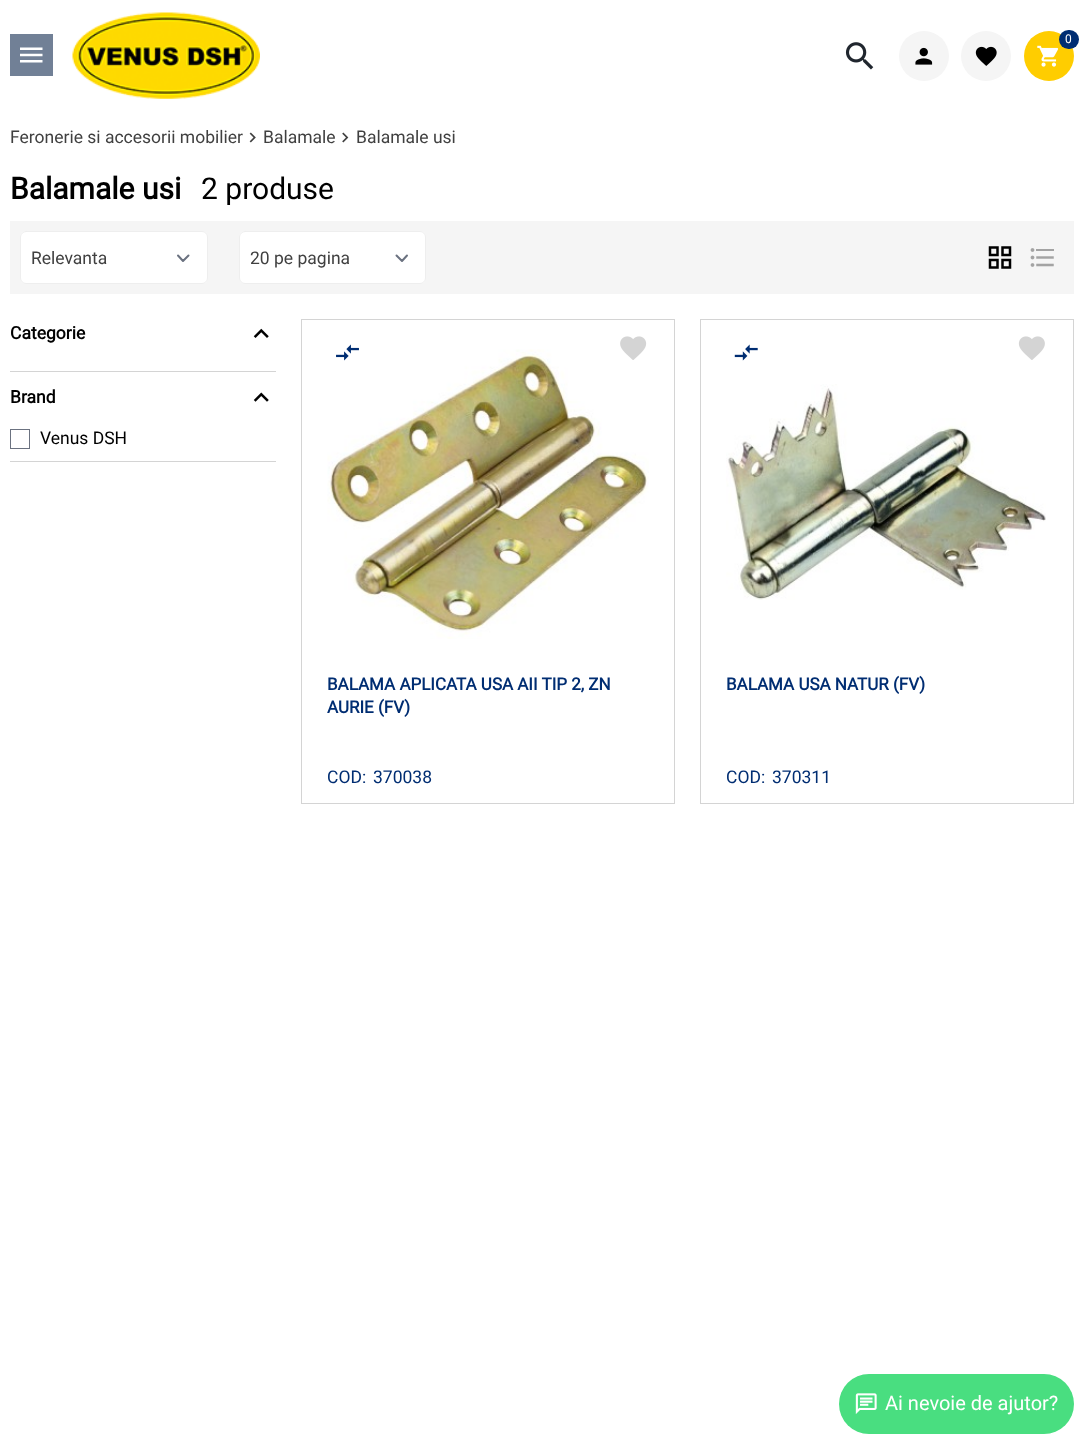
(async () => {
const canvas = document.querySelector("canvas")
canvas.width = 1083
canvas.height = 1452
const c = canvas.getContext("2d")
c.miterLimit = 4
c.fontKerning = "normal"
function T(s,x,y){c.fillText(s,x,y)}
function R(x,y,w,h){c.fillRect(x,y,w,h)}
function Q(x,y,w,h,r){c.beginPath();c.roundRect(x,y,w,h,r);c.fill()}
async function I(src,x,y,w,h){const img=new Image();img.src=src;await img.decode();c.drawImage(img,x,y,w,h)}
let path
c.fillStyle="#fff"
R(0,0,1083,1452)
c.fillStyle="#718096"
R(10,34,43,42)
await I("1.png",20,47,23,16)
await I("2.png",72,12,188,87)
c.fillStyle="#f5f5f5"
c.beginPath()
c.arc(924,56,25,0,7)
c.fill()
await I("3.png",915,47,18,18)
c.beginPath()
c.arc(986,56,25,0,7)
c.fill()
await I("4.png",975,46,22,20)
c.fillStyle="#ffcd00"
c.beginPath()
c.arc(1049,56,25,0,7)
c.fill()
await I("5.png",1037,45,22,22)
c.fillStyle="#002d72"
Q(1059,30,20,19,9.5)
c.font="12px Roboto"
c.fillStyle="#fff"
T("0",1065,43)
await I("6.png",845,42,29,28)
c.font="17.5px Roboto"
c.fillStyle="#404040"
T("Feronerie si accesorii mobilier",10,143)
await I("7.png",249,132,7,11)
T("Balamale",263,143)
await I("8.png",342,132,7,11)
T("Balamale usi",356,143)
c.font="bold 30px Roboto"
c.fillStyle="#000"
T("Balamale usi",10,199)
c.font="30px Roboto"
T("2 produse",201,199)
c.fillStyle="#f5f5f5"
R(10,221,1064,73)
c.fillStyle="#fff"
Q(20,231,188,53,6)
path = new Path2D("M178 255.5l5 5.5l5.5-5.5")
c.strokeStyle="#6b7280"
c.lineWidth=2
c.lineCap="round"
c.lineJoin="round"
c.stroke(path)
c.beginPath()
c.roundRect(20.5,231.5,187,52,5.5)
c.strokeStyle="#eee"
c.lineWidth=1
c.lineJoin="miter"
c.stroke()
c.font="17.5px Roboto"
c.fillStyle="#404040"
T("Relevanta",31,264)
c.fillStyle="#fff"
Q(239,231,187,53,6)
path = new Path2D("M396.5 255.5l5.5 5.5l5-5.5")
c.strokeStyle="#6b7280"
c.lineWidth=2
c.lineJoin="round"
c.stroke(path)
c.beginPath()
c.roundRect(239.5,231.5,186,52,5.5)
c.strokeStyle="#eee"
c.lineWidth=1
c.lineJoin="miter"
c.stroke()
c.fillStyle="#404040"
T("20 pe pagina",250,264)
await I("9.png",988,246,24,23)
await I("10.png",1030,248,24,19)
c.fillStyle="#d4d4d4"
R(10,371,266,1)
c.font="bold 17.5px Roboto"
c.fillStyle="#000"
T("Categorie",10,339)
await I("11.png",253,328,16,10)
c.fillStyle="#d4d4d4"
R(10,461,266,1)
c.fillStyle="#000"
T("Brand",10,403)
await I("12.png",253,392,16,10)
c.strokeStyle="#6b7280"
c.strokeRect(10.5,429.5,19,19)
c.font="17.5px Roboto"
T("Venus DSH",40,444)
c.strokeStyle="#d4d4d4"
c.strokeRect(301.5,319.5,373,484)
await I("15.png",327,349,322,290)
await I("13.png",336,344,23,17)
await I("14.png",620,336,27,24)
c.font="bold 17px Roboto"
c.fillStyle="#002d72"
T("BALAMA APLICATA USA AII TIP 2, ZN",327,690)
T("AURIE (FV)",327,713)
c.font="17.5px Roboto"
T("COD:",327,783)
T("370038",373,783)
c.strokeRect(700.5,319.5,373,484)
await I("16.png",734,344,24,17)
await I("17.png",1018,336,27,24)
await I("18.png",726,384,320,216)
c.font="bold 17px Roboto"
T("BALAMA USA NATUR (FV)",726,690)
c.font="17.5px Roboto"
T("COD:",726,783)
T("370311",772,783)
c.fillStyle="#49de80"
Q(839,1374,235,60,30)
await I("19.png",855,1393,22,21)
c.font="20px Roboto"
c.fillStyle="#fff"
T("Ai nevoie de ajutor?",885,1410)
})()
